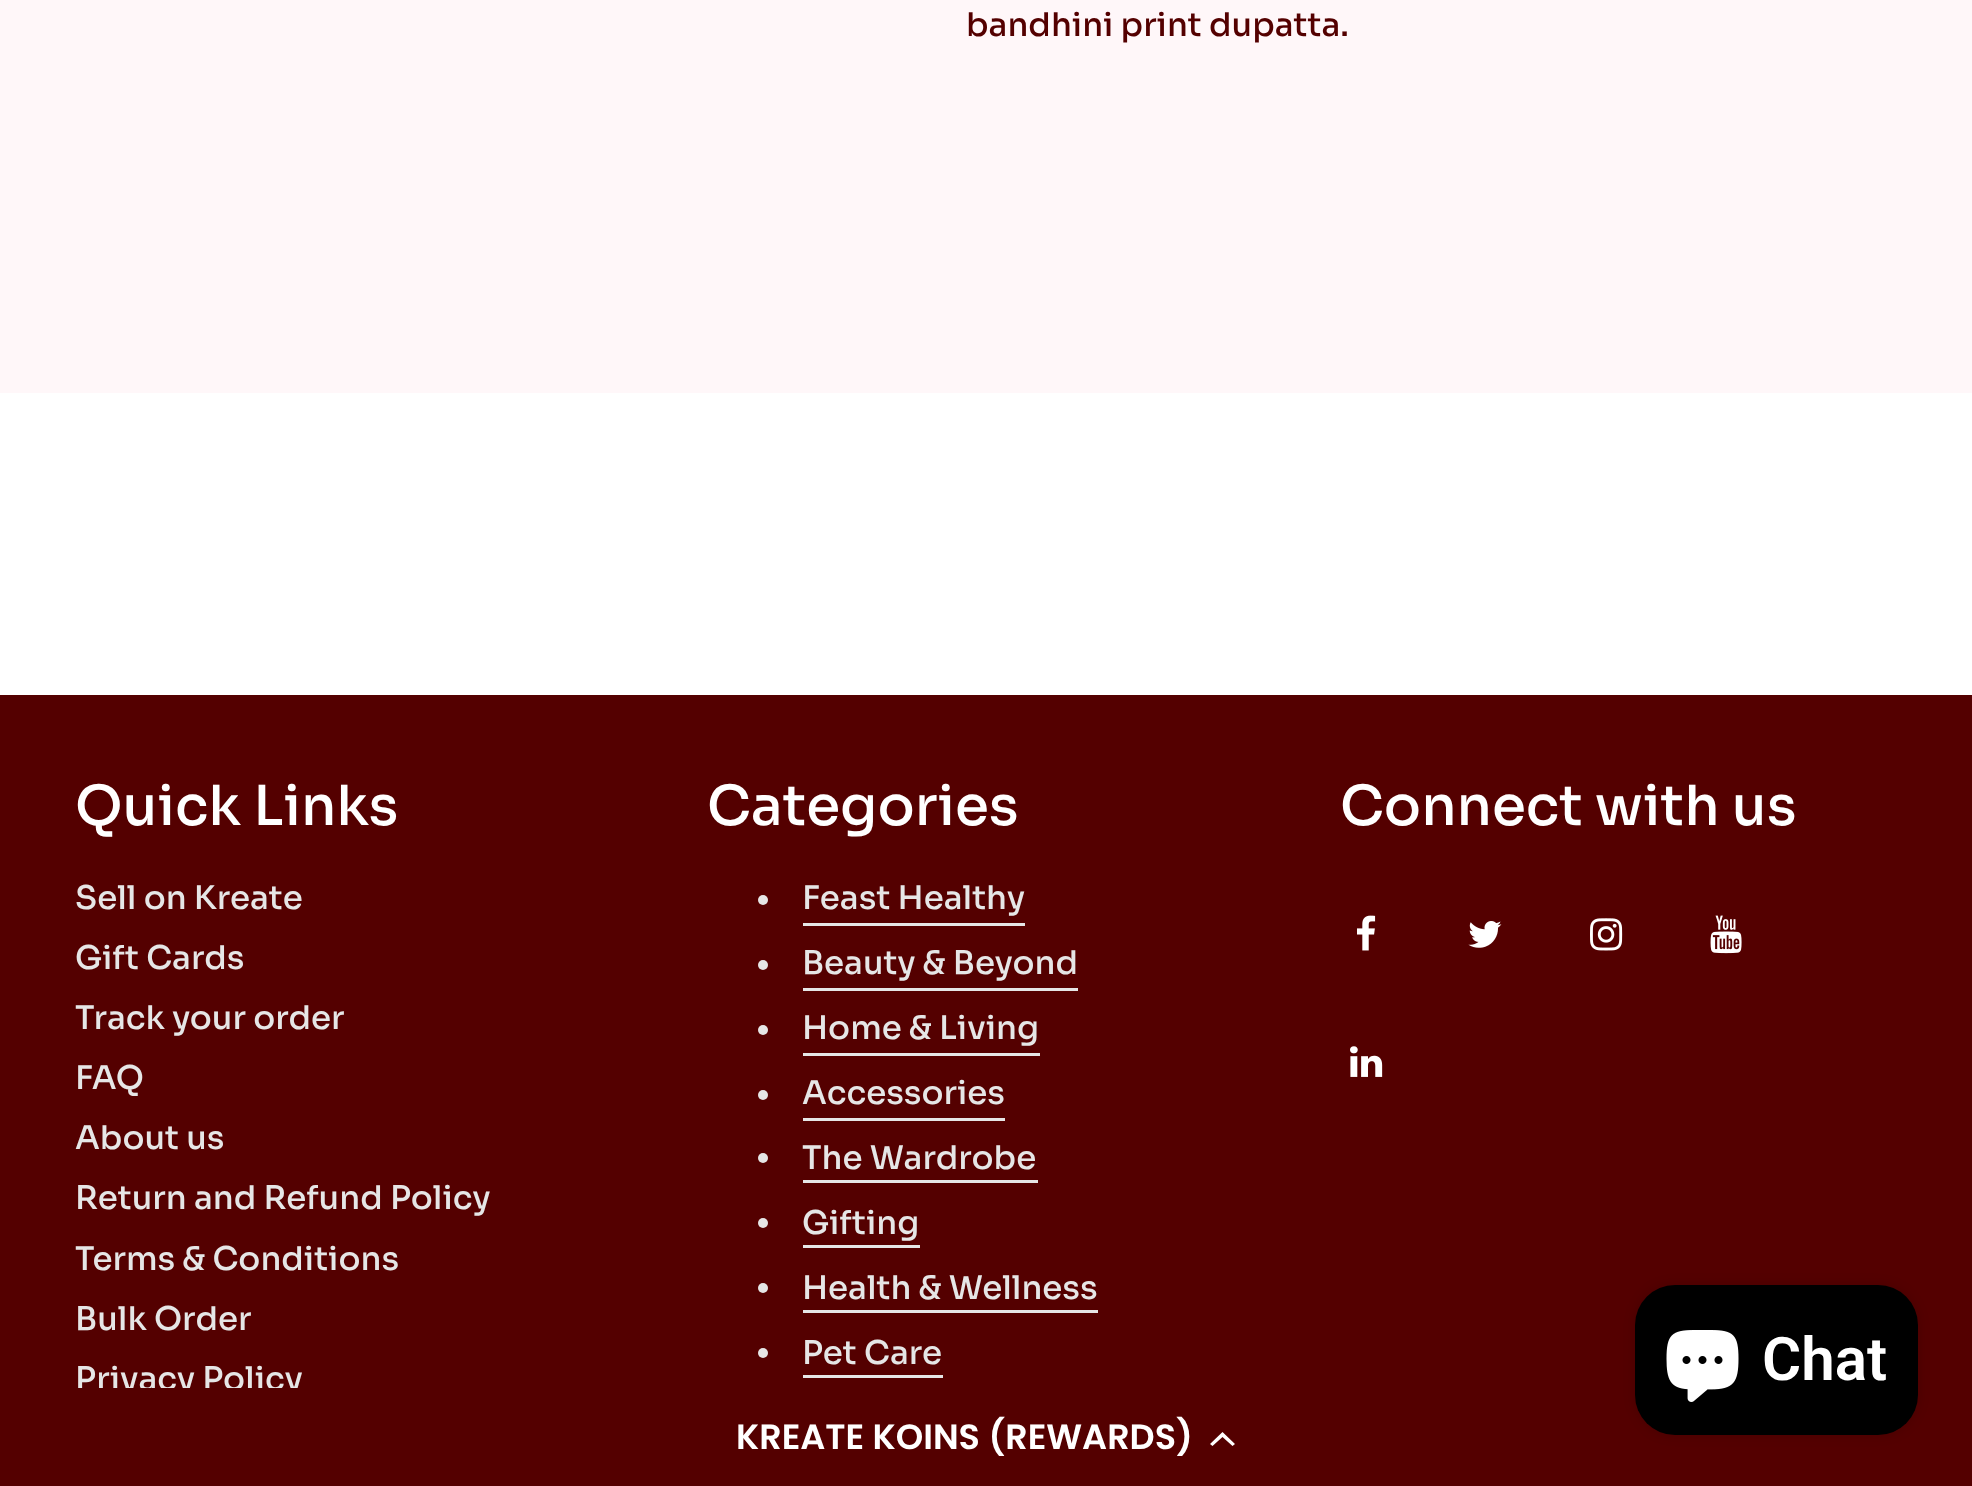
(async () => {
const canvas = document.querySelector("canvas")
canvas.width = 1972
canvas.height = 1486
const c = canvas.getContext("2d")
c.miterLimit = 4
c.fontKerning = "normal"
function T(s,x,y){c.fillText(s,x,y)}
function R(x,y,w,h){c.fillRect(x,y,w,h)}
function Q(x,y,w,h,r){c.beginPath();c.roundRect(x,y,w,h,r);c.fill()}
async function I(src,x,y,w,h){const img=new Image();img.src=src;await img.decode();c.drawImage(img,x,y,w,h)}
let path
c.fillStyle="#fff7f9"
R(0,0,1972,1486)
c.font="500 32.5px Sora"
c.fillStyle="#540000"
T("bandhini print dupatta.",966,36)
c.fillStyle="#fff"
R(0,393,1972,302)
c.fillStyle="#540000"
R(0,695,1972,693)
c.font="500 55px Sora"
c.fillStyle="#fff"
T("Quick Links",75,825)
c.font="500 32.5px Sora"
c.fillStyle="#e6e6e6"
T("Sell on Kreate",75,909)
T("Gift Cards",75,969)
T("Track your order",75,1029)
T("FAQ",75,1089)
T("About us",75,1149)
T("Return and Refund Policy",75,1209)
T("Terms & Conditions",75,1270)
T("Bulk Order",75,1330)
T("Privacy Policy",75,1390)
c.font="500 55px Sora"
c.fillStyle="#fff"
T("Categories",707,825)
c.fillStyle="#e6e6e6"
c.beginPath()
c.arc(763,900,5,0,7)
c.fill()
c.font="500 32.5px Sora"
T("Feast Healthy",802,909)
R(803,923,222,3)
c.beginPath()
c.arc(763,965,5,0,7)
c.fill()
T("Beauty & Beyond",802,974)
R(803,988,275,3)
c.beginPath()
c.arc(763,1030,5,0,7)
c.fill()
T("Home & Living",802,1039)
R(803,1053,237,3)
c.beginPath()
c.arc(763,1095,5,0,7)
c.fill()
T("Accessories",802,1104)
R(803,1118,202,3)
c.beginPath()
c.arc(763,1158,5,0,7)
c.fill()
T("The Wardrobe",802,1169)
R(803,1180,235,3)
c.beginPath()
c.arc(763,1223,5,0,7)
c.fill()
T("Gifting",802,1234)
R(803,1245,117,3)
c.beginPath()
c.arc(763,1288,5,0,7)
c.fill()
T("Health & Wellness",802,1299)
R(803,1310,295,3)
c.beginPath()
c.arc(763,1353,5,0,7)
c.fill()
T("Pet Care",802,1364)
R(803,1375,140,3)
c.font="500 55px Sora"
c.fillStyle="#fff"
T("Connect with us",1340,825)
await I("1.png",1357,915,19,36)
await I("2.png",1468,921,34,27)
await I("3.png",1590,918,33,33)
await I("4.png",1710,915,32,39)
await I("5.png",1350,1046,33,31)
c.fillStyle="#540000"
R(0,1388,1972,98)
c.fillStyle="#00000026"
c.filter="blur(6px)"
c.beginPath()
c.roundRect(1635,1285,283,150,40)
c.fill()
c.filter="none"
c.fillStyle="#000"
Q(1635,1285,283,150,40)
await I("6.png",1666,1330,73,72)
c.font="600 60px Roboto"
c.fillStyle="#fff"
T("Chat",1762,1380)
c.font="600 35px Poppins"
T("KREATE KOINS (REWARDS)",736,1449)
path = new Path2D("M1222.5 1437l-10 9l-2.5-2l12.5-12l12.5 12l-2.5 2z")
c.fill(path)
})()
